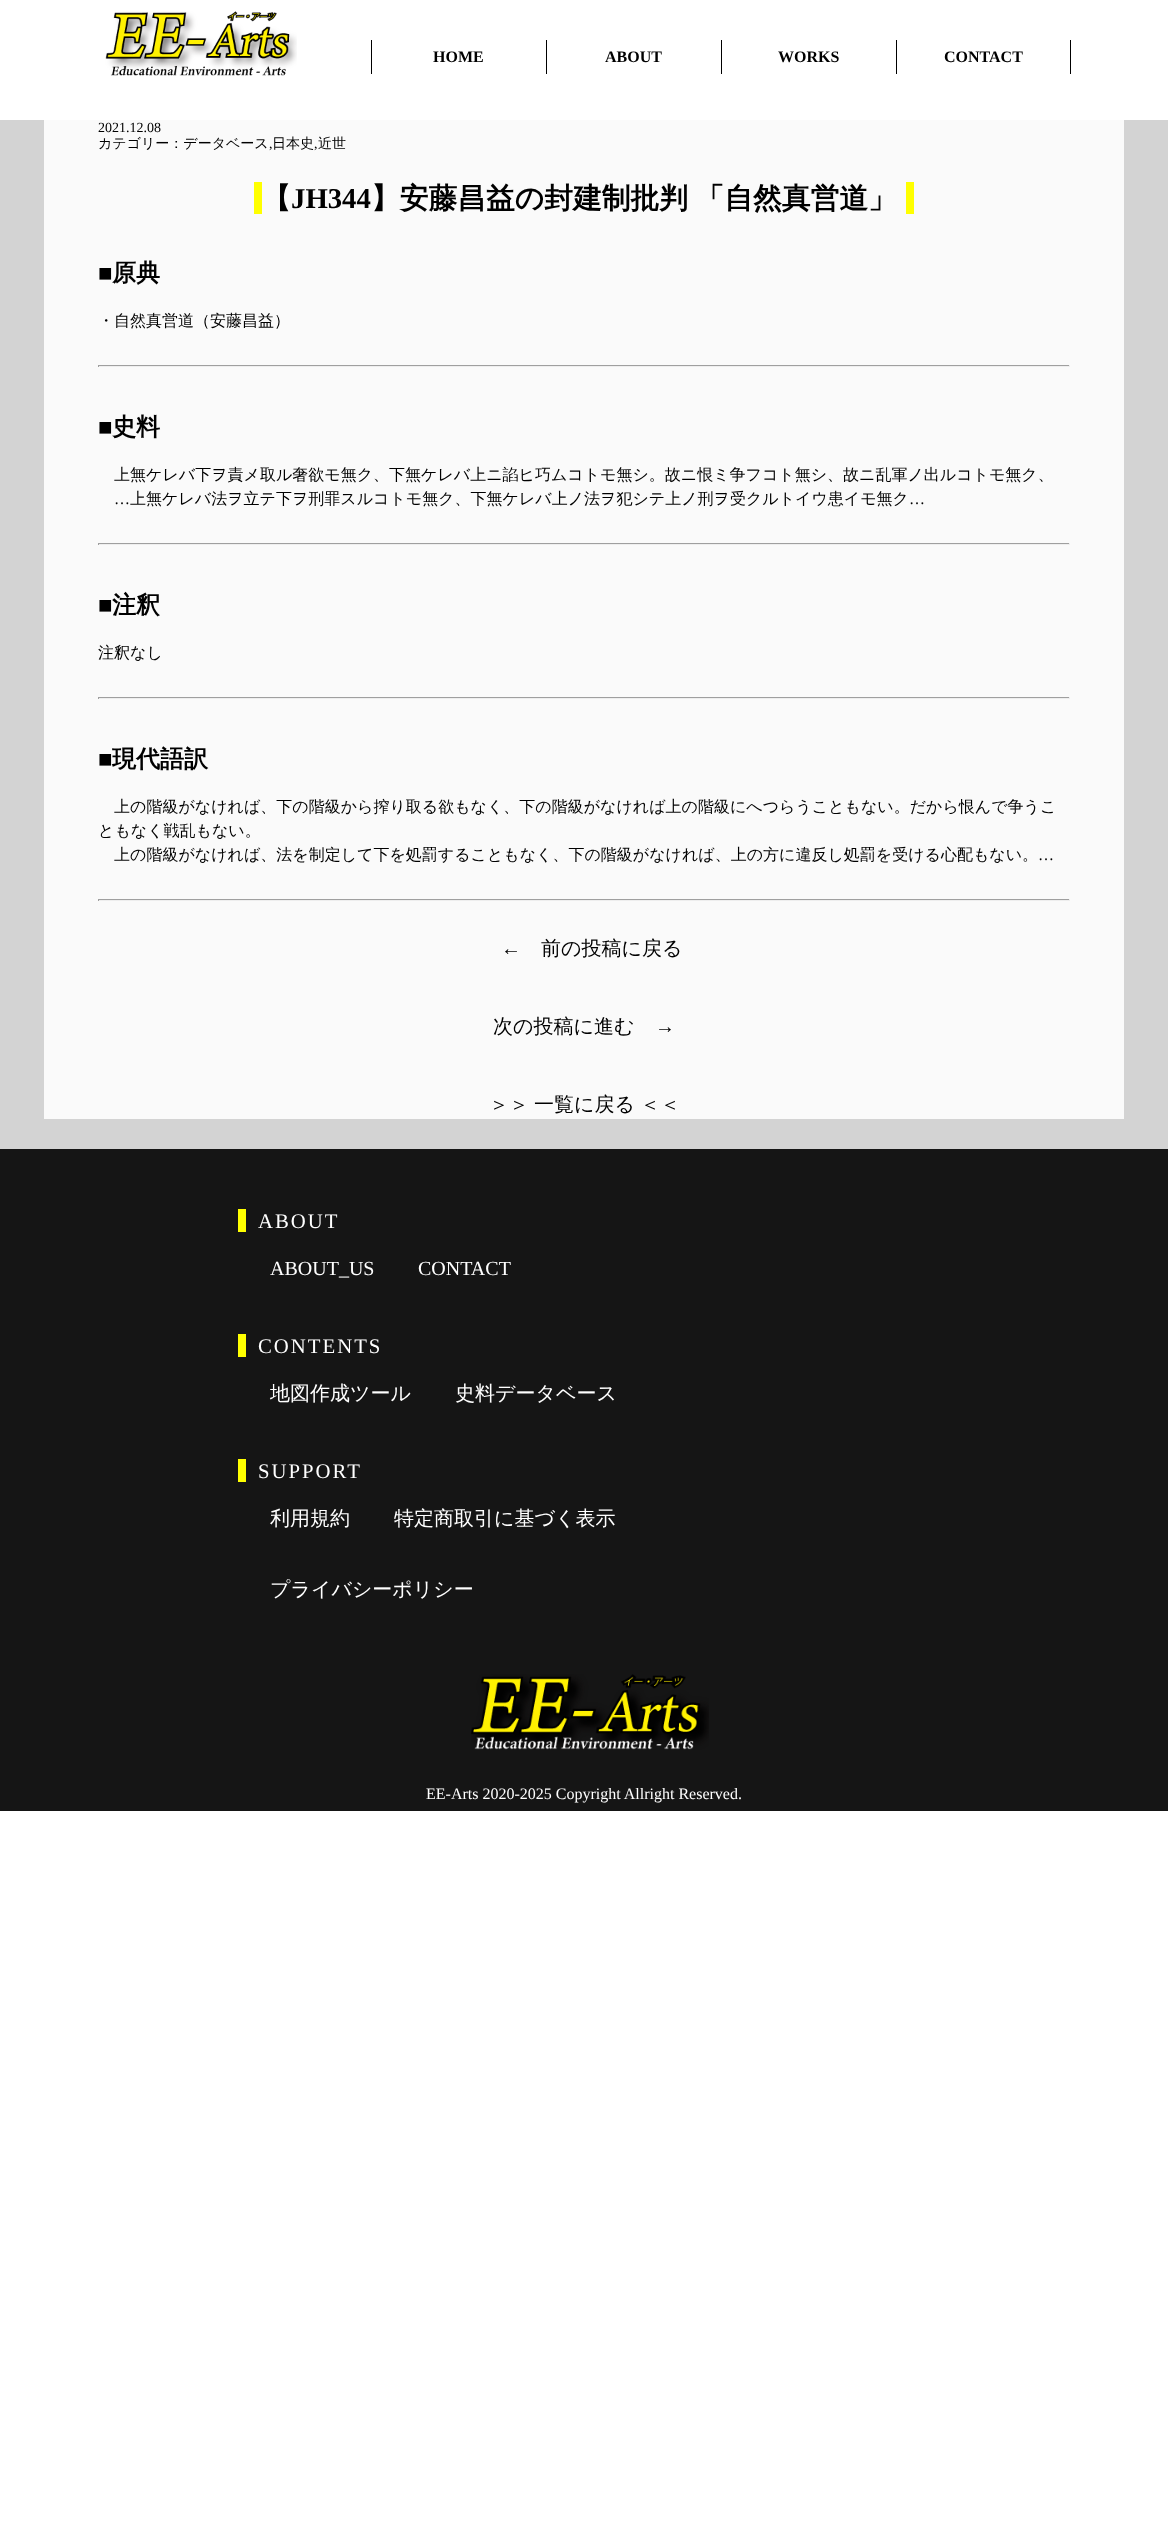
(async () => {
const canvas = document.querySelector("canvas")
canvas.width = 1168
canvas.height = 2523
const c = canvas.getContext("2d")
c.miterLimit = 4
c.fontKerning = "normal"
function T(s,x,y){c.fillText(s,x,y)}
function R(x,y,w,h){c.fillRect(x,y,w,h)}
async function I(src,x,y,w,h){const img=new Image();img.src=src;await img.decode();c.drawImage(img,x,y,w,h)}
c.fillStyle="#fff"
R(0,0,1168,2523)
await I("1.png",105,11,192,65)
c.fillStyle="#000"
R(371,40,1,34)
c.font="bold 16px Liberation Serif"
T("HOME",433,62)
R(546,40,1,34)
T("ABOUT",605,62)
R(721,40,1,34)
T("WORKS",778,62)
R(1070,40,1,34)
R(896,40,1,34)
T("CONTACT",944,62)
c.fillStyle="#d3d3d3"
R(0,120,1168,1029)
c.fillStyle="#fafafa"
R(44,120,1080,999)
c.font="14px Liberation Serif"
c.fillStyle="#000"
T("2021.12.08",98,132)
c.font="500 14px WenQuanYi Zen Hei"
T("カテゴリー：データベース",98,148)
c.font="14px Liberation Serif"
T(",",269,148)
c.font="500 14px WenQuanYi Zen Hei"
T("日本史",272,148)
c.font="14px Liberation Serif"
T(",",314,148)
c.font="500 14px WenQuanYi Zen Hei"
T("近世",318,148)
c.fillStyle="#ff0"
R(254,182,8,32)
c.font="bold 28.75px WenQuanYi Zen Hei"
c.fillStyle="#000"
T("【",262,208)
c.font="bold 28.75px Liberation Serif"
T("JH344",291,208)
c.wordSpacing="-1px"
c.font="bold 28.75px WenQuanYi Zen Hei"
T("】安藤昌益の封建制批判 「自然真営道」",371,208)
c.fillStyle="#ff0"
R(906,182,8,32)
c.wordSpacing="0px"
c.font="bold 24px Liberation Serif"
c.fillStyle="#000"
T("■",98,281)
c.font="bold 24px WenQuanYi Zen Hei"
T("原典",112,281)
c.font="500 16px WenQuanYi Zen Hei"
T("・自然真営道（安藤昌益）",98,326)
c.fillStyle="#9f9f9f"
R(98,365,972,1)
c.fillStyle="#eee"
R(1069,365,1,2)
R(98,366,972,1)
c.fillStyle="#9f9f9f"
R(98,365,1,2)
c.font="bold 24px Liberation Serif"
c.fillStyle="#000"
T("■",98,435)
c.font="bold 24px WenQuanYi Zen Hei"
T("史料",112,435)
c.font="500 16px WenQuanYi Zen Hei"
T("上無ケレバ下ヲ責メ取ル奢欲モ無ク、下無ケレバ上ニ諂ヒ巧ムコトモ無シ。故ニ恨ミ争フコト無シ、故ニ乱軍ノ出ルコトモ無ク、",114,480)
c.font="16px Liberation Serif"
T("…",114,504)
c.font="500 16px WenQuanYi Zen Hei"
T("上無ケレバ法ヲ立テ下ヲ刑罪スルコトモ無ク、下無ケレバ上ノ法ヲ犯シテ上ノ刑ヲ受クルトイウ患イモ無ク",130,504)
c.font="16px Liberation Serif"
T("…",909,504)
c.fillStyle="#9f9f9f"
R(98,543,972,1)
c.fillStyle="#eee"
R(1069,543,1,2)
R(98,544,972,1)
c.fillStyle="#9f9f9f"
R(98,543,1,2)
c.font="bold 24px Liberation Serif"
c.fillStyle="#000"
T("■",98,613)
c.font="bold 24px WenQuanYi Zen Hei"
T("注釈",112,613)
c.font="500 16px WenQuanYi Zen Hei"
T("注釈なし",98,658)
c.fillStyle="#9f9f9f"
R(98,697,972,1)
c.fillStyle="#eee"
R(1069,697,1,2)
R(98,698,972,1)
c.fillStyle="#9f9f9f"
R(98,697,1,2)
c.font="bold 24px Liberation Serif"
c.fillStyle="#000"
T("■",98,767)
c.font="bold 24px WenQuanYi Zen Hei"
T("現代語訳",112,767)
c.font="500 16px WenQuanYi Zen Hei"
T("上の階級がなければ、下の階級から搾り取る欲もなく、下の階級がなければ上の階級にへつらうこともない。だから恨んで争うこ",114,812)
T("ともなく戦乱もない。",98,836)
T("上の階級がなければ、法を制定して下を処罰することもなく、下の階級がなければ、上の方に違反し処罰を受ける心配もない。",114,860)
c.font="16px Liberation Serif"
T("…",1038,860)
c.fillStyle="#9f9f9f"
R(98,899,972,1)
c.fillStyle="#eee"
R(1069,899,1,2)
R(98,900,972,1)
c.fillStyle="#9f9f9f"
R(98,899,1,2)
c.font="20px Liberation Serif"
c.fillStyle="#000"
T("←",501,955)
c.font="500 20px WenQuanYi Zen Hei"
T("前の投稿に戻る",541,955)
T("次の投稿に進む",493,1033)
c.font="20px Liberation Serif"
T("→",655,1033)
c.wordSpacing="-1px"
c.font="500 20px WenQuanYi Zen Hei"
T("＞＞ 一覧に戻る ＜＜",489,1111)
c.fillStyle="#151515"
R(0,1149,1168,662)
c.fillStyle="#ff0"
R(238,1209,8,23)
c.letterSpacing="2px"
c.wordSpacing="0px"
c.font="20.75px Liberation Serif"
c.fillStyle="#fff"
T("ABOUT",258,1228)
c.letterSpacing="0px"
c.font="20px Liberation Serif"
T("ABOUT_US",270,1275)
T("CONTACT",418,1275)
c.fillStyle="#ff0"
R(238,1334,8,23)
c.letterSpacing="2px"
c.font="20.75px Liberation Serif"
c.fillStyle="#fff"
T("CONTENTS",258,1353)
c.letterSpacing="0px"
c.font="500 20px WenQuanYi Zen Hei"
T("地図作成ツール",270,1400)
T("史料データベース",455,1400)
c.fillStyle="#ff0"
R(238,1459,8,23)
c.letterSpacing="2px"
c.font="20.75px Liberation Serif"
c.fillStyle="#fff"
T("SUPPORT",258,1478)
c.letterSpacing="0px"
c.font="500 20px WenQuanYi Zen Hei"
T("利用規約",270,1525)
T("特定商取引に基づく表示",394,1525)
T("プライバシーポリシー",270,1596)
await I("2.png",471,1674,238,76)
c.font="16px Liberation Serif"
T("EE-Arts 2020-2025 Copyright Allright Reserved.",426,1799)
})()
